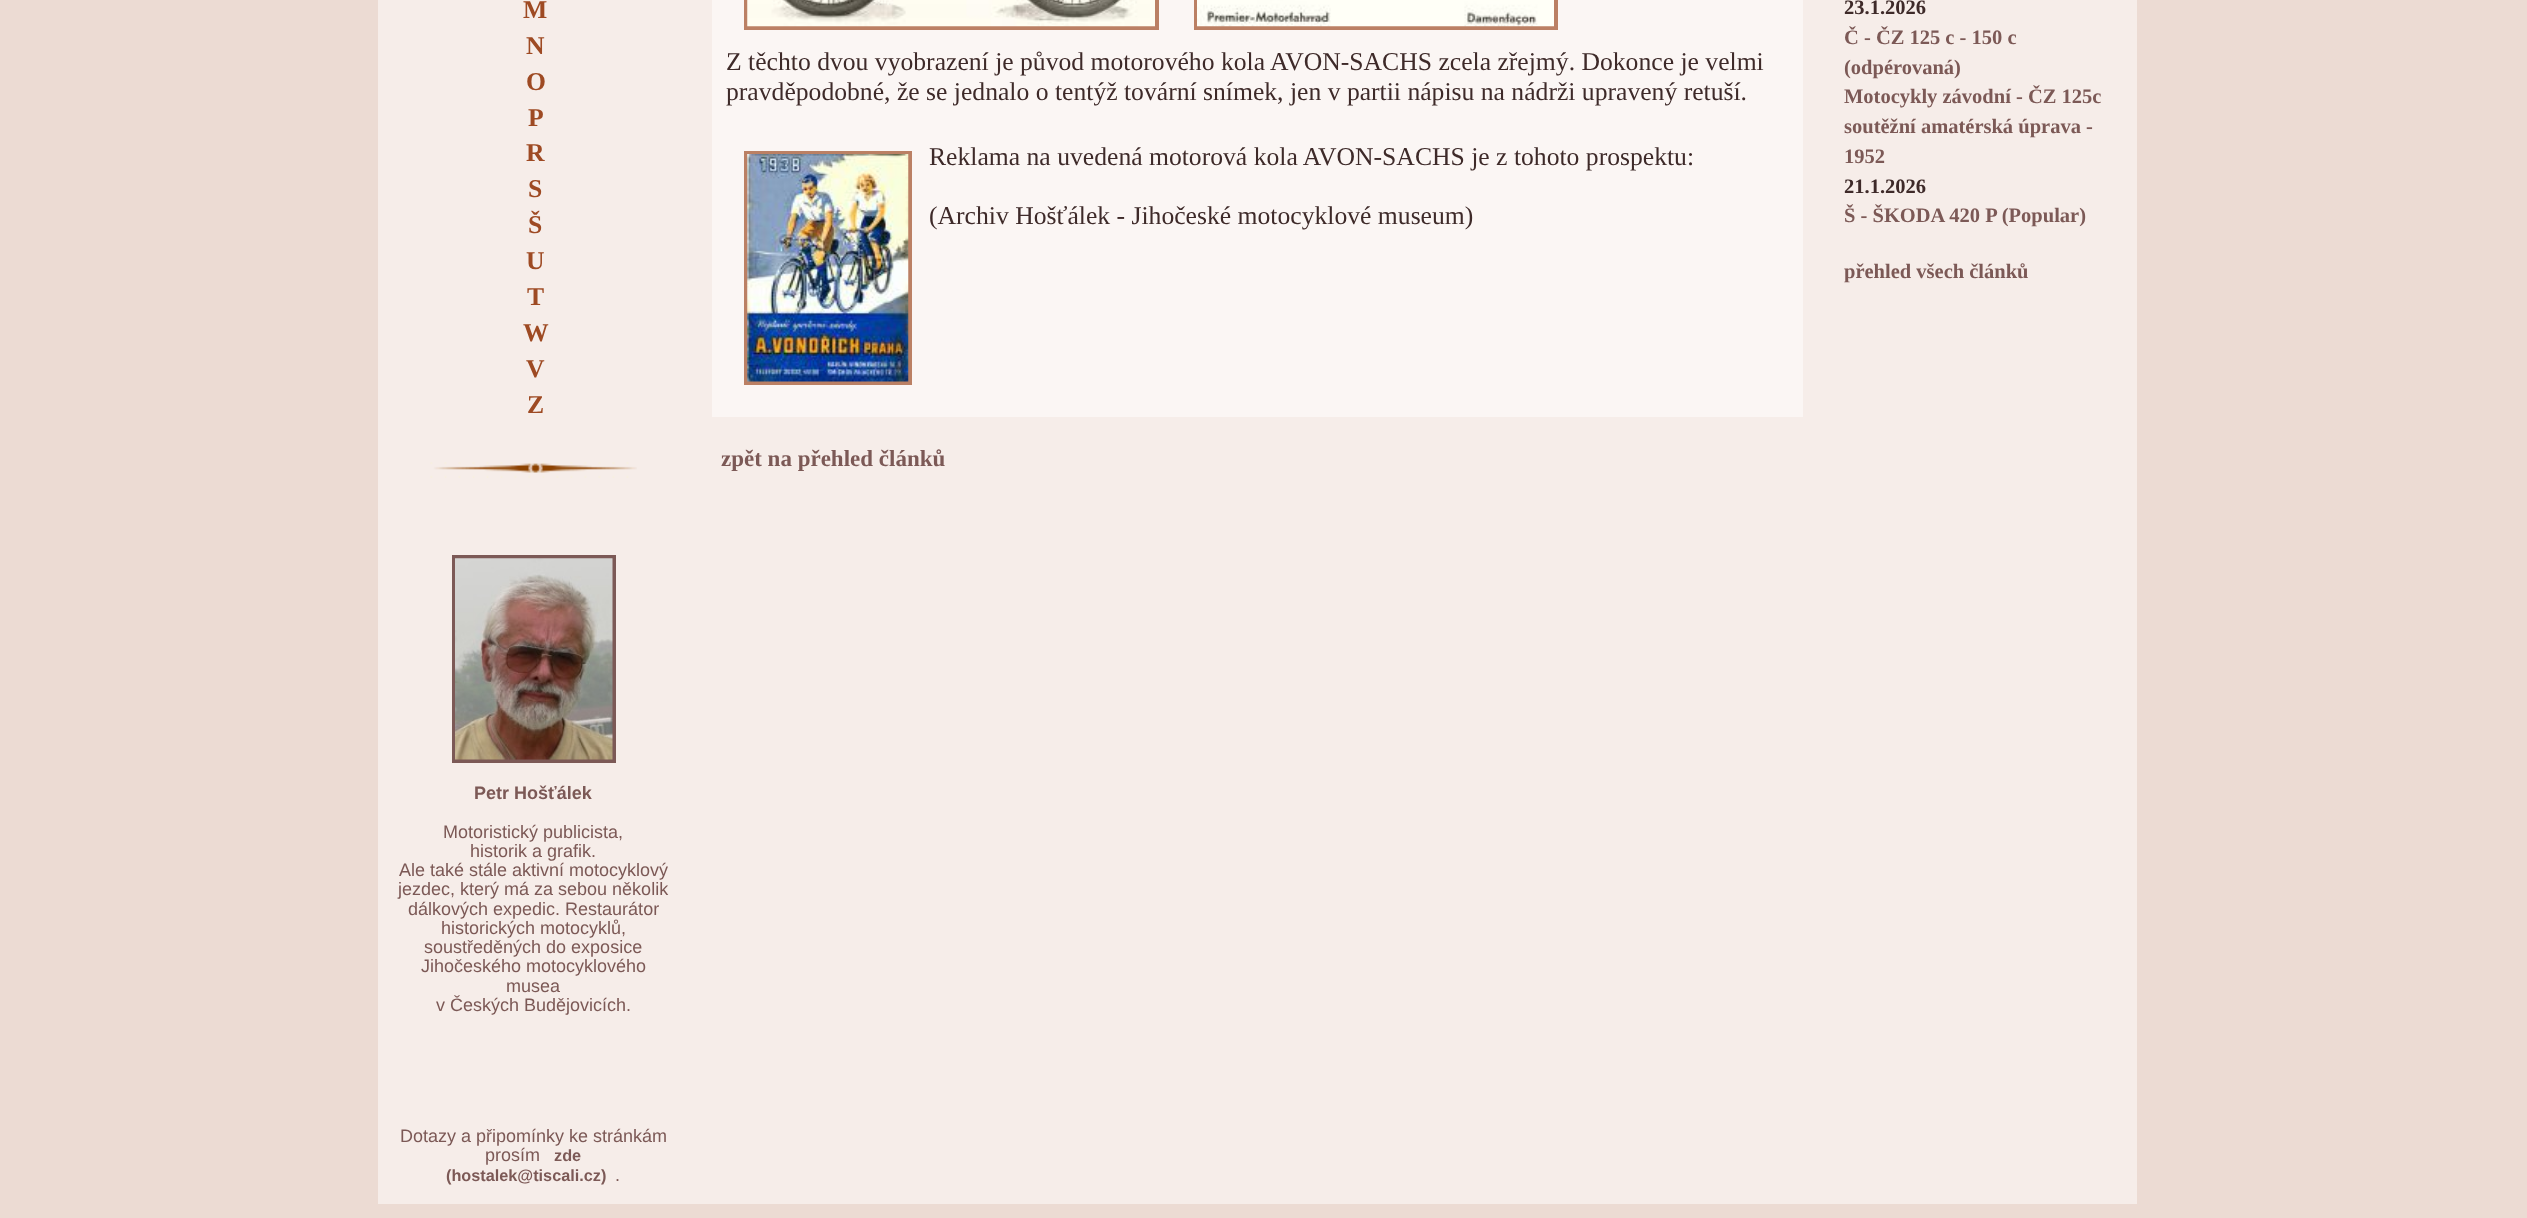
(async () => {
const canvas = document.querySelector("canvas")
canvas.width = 2527
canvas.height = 1218
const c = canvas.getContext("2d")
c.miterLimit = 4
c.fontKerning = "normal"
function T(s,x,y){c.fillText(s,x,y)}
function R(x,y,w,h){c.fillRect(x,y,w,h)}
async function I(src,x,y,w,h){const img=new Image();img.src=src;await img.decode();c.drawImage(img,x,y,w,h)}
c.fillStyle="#ecdbd3"
R(0,0,2527,1218)
c.fillStyle="#f6ede9"
R(378,0,1759,1204)
c.font="bold 25.65px Liberation Serif"
c.fillStyle="#9e4a23"
T("M",523,18)
T("N",526,54)
T("O",526,90)
T("P",528,126)
T("R",526,161)
T("S",528,197)
T("Š",528,233)
T("U",526,269)
T("T",527,305)
T("W",523,341)
T("V",526,377)
T("Z",527,413)
await I("1.png",430,462,207,16)
c.strokeStyle="#7c5956"
c.lineWidth=4
c.strokeRect(454,557,160,204)
await I("2.png",455,558,158,202)
c.font="bold 18px Liberation Sans"
c.fillStyle="#7c5956"
T("Petr Hošťálek",474,799)
c.font="18px Liberation Sans"
T("Motoristický publicista,",443,838)
T("historik a grafik.",470,857)
T("Ale také stále aktivní motocyklový",399,876)
T("jezdec, který má za sebou několik",398,895)
T("dálkových expedic. Restaurátor",408,915)
T("historických motocyklů,",441,934)
T("soustředěných do exposice",424,953)
T("Jihočeského motocyklového",421,972)
T("musea",506,992)
T("v Českých Budějovicích.",436,1011)
T("Dotazy a připomínky ke stránkám",400,1142)
T("prosím",485,1161)
c.font="bold 16.25px Liberation Sans"
T("zde",554,1161)
T("(hostalek@tiscali.cz)",446,1181)
c.font="18px Liberation Sans"
T(".",615,1181)
c.font="bold 20.5px Liberation Serif"
c.fillStyle="#3e2a29"
T("23.1.2026",1844,14)
c.fillStyle="#7c5956"
T("Č - ČZ 125 c - 150 c",1844,44)
T("(odpérovaná)",1844,74)
T("Motocykly závodní - ČZ 125c",1844,103)
T("soutěžní amatérská úprava -",1844,133)
T("1952",1844,163)
c.fillStyle="#3e2a29"
T("21.1.2026",1844,193)
c.fillStyle="#7c5956"
T("Š - ŠKODA 420 P (Popular)",1844,222)
T("přehled všech článků",1844,278)
c.fillStyle="#fbf6f4"
R(712,0,1091,417)
c.strokeStyle="#bb8064"
c.strokeRect(746,-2,411,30)
await I("3.png",747,0,408,27)
c.strokeRect(1196,-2,360,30)
await I("4.png",1197,0,357,27)
c.font="25.65px Liberation Serif"
c.fillStyle="#3e2a29"
T("Z těchto dvou vyobrazení je původ motorového kola AVON-SACHS zcela zřejmý. Dokonce je velmi",726,70)
T("pravděpodobné, že se jednalo o tentýž tovární snímek, jen v partii nápisu na nádrži upravený retuší.",726,100)
c.strokeRect(746,153,164,230)
await I("5.png",747,154,162,228)
T("Reklama na uvedená motorová kola AVON-SACHS je z tohoto prospektu:",929,165)
T("(Archiv Hošťálek - Jihočeské motocyklové museum)",929,224)
c.font="bold 23px Liberation Serif"
c.fillStyle="#7c5956"
T("zpět na přehled článků",721,466)
})()
